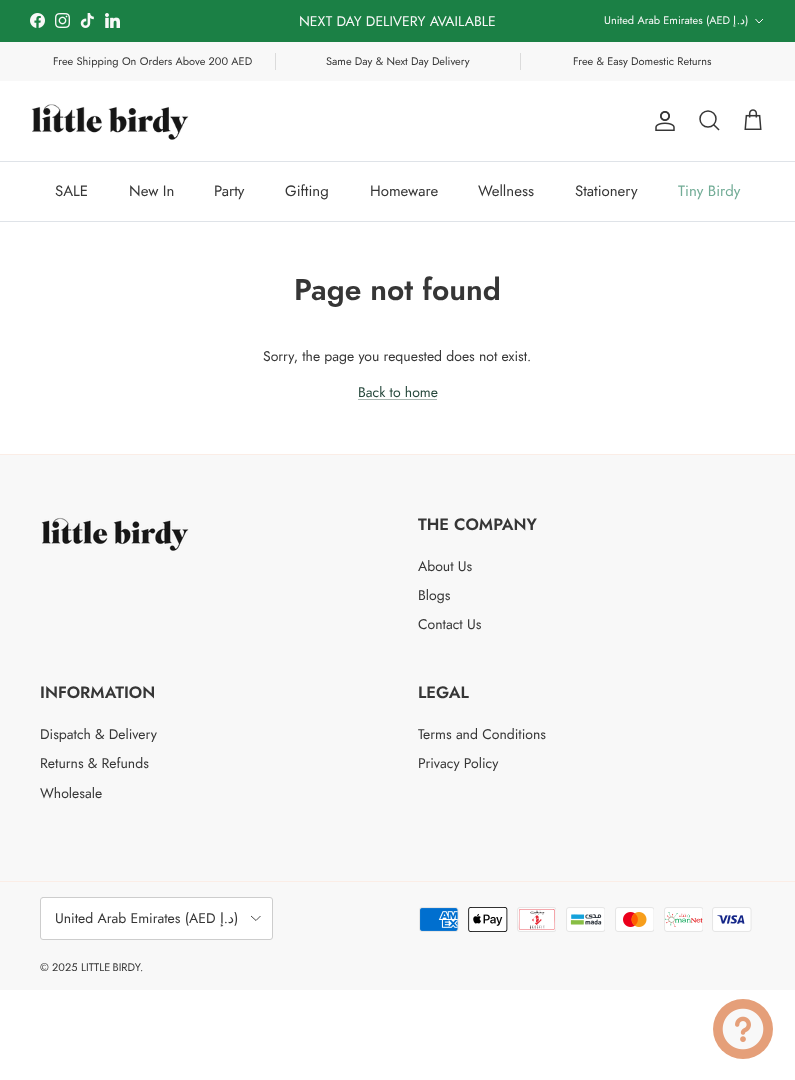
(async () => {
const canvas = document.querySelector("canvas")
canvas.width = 795
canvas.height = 1080
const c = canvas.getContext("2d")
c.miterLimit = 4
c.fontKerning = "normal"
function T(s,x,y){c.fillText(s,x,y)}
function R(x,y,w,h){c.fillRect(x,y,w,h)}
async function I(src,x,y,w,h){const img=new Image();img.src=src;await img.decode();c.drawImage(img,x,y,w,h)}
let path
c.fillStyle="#fff"
R(0,0,795,1080)
c.fillStyle="#1b8045"
R(0,0,795,42)
await I("1.png",30,13,15,15)
await I("2.png",55,13,15,15)
await I("3.png",80,13,14,15)
await I("4.png",105,13,15,15)
c.font="14px Jost"
c.fillStyle="#f8f8f8"
T("NEXT DAY DELIVERY AVAILABLE",299,26)
c.font="11px Jost"
T("United Arab Emirates (AED",604,24)
c.direction="rtl"
c.font="11px DejaVu Sans"
T("إ",736,24)
c.font="11px Jost"
T(".",740,24)
c.font="11px DejaVu Sans"
T("د",745,24)
c.direction="ltr"
c.font="11px Jost"
T(")",745,24)
path = new Path2D("M763 19l-4 4l-3.5-4")
c.strokeStyle="#f8f8f8"
c.stroke(path)
R(0,42,795,39)
c.fillStyle="#363636"
T("Free Shipping On Orders Above 200 AED",53,65)
c.fillStyle="#dbdbdb"
R(275,53,1,17)
c.fillStyle="#363636"
T("Same Day & Next Day Delivery",326,65)
c.fillStyle="#dbdbdb"
R(520,53,1,17)
c.fillStyle="#363636"
T("Free & Easy Domestic Returns",573,65)
c.fillStyle="#dfe3e8"
R(0,161,795,1)
await I("5.png",31,104,158,36)
await I("6.png",655,111,20,20)
c.beginPath()
c.arc(708,119,8,0,7)
c.strokeStyle="#363636"
c.lineWidth=1.5
c.stroke()
path = new Path2D("M714 125l4.5 4.5")
c.lineCap="square"
c.stroke(path)
await I("7.png",744,109,18,21)
R(0,221,795,1)
c.font="15px Jost"
c.fillStyle="#363636"
T("SALE",55,196)
T("New In",129,196)
T("Party",214,196)
T("Gifting",285,196)
T("Homeware",370,196)
T("Wellness",478,196)
T("Stationery",575,196)
c.fillStyle="#72ac96"
T("Tiny Birdy",678,196)
c.font="600 30px Jost"
c.fillStyle="#363636"
T("Page not found",294,300)
c.font="14px Jost"
T("Sorry, the page you requested does not exist.",263,361)
c.fillStyle="#26483c"
T("Back to home",358,397)
c.fillStyle="#a8b6b1"
R(358,399,79,1)
c.fillStyle="#f8f8f8"
R(0,455,795,535)
c.fillStyle="#fbede6"
R(0,454,795,1)
await I("8.png",41,517,148,34)
c.font="600 16.5px Jost"
c.fillStyle="#363636"
T("THE COMPANY",418,530)
c.font="14px Jost"
T("About Us",418,571)
T("Blogs",418,600)
T("Contact Us",418,629)
c.font="600 16.5px Jost"
T("INFORMATION",40,698)
c.font="14px Jost"
T("Dispatch & Delivery",40,739)
T("Returns & Refunds",40,768)
T("Wholesale",40,798)
c.font="600 16.5px Jost"
T("LEGAL",418,698)
c.font="14px Jost"
T("Terms and Conditions",418,739)
T("Privacy Policy",418,768)
c.fillStyle="#fbede6"
R(0,881,795,1)
c.fillStyle="#fff"
c.beginPath()
c.roundRect(40.5,897.5,232,42,2.5)
c.fill()
c.strokeStyle="#cdcdcd"
c.lineWidth=1
c.stroke()
c.fillStyle="#363636"
T("United Arab Emirates (AED",55,923)
c.direction="rtl"
c.font="14px DejaVu Sans"
T("إ",224,923)
c.font="14px Jost"
T(".",228,923)
c.font="14px DejaVu Sans"
T("د",234,923)
c.direction="ltr"
c.font="14px Jost"
T(")",234,923)
path = new Path2D("M260.5 916l-4.5 4.5l-5-4.5")
c.strokeStyle="#363636"
c.lineWidth=0.9
c.lineCap="butt"
c.stroke(path)
c.font="11px Jost"
T("© 2025",40,971)
c.wordSpacing="-1px"
T("LITTLE BIRDY",81,971)
c.wordSpacing="0px"
T(".",140,971)
await I("9.png",419,907,40,25)
await I("10.png",468,907,40,25)
await I("11.png",517,907,39,25)
await I("12.png",566,907,39,25)
await I("13.png",615,907,39,25)
await I("14.png",664,907,39,25)
await I("15.png",712,907,40,25)
c.fillStyle="#e59f79"
c.beginPath()
c.arc(743,1029,30,0,7)
c.fill()
await I("16.png",722,1008,42,42)
})()
